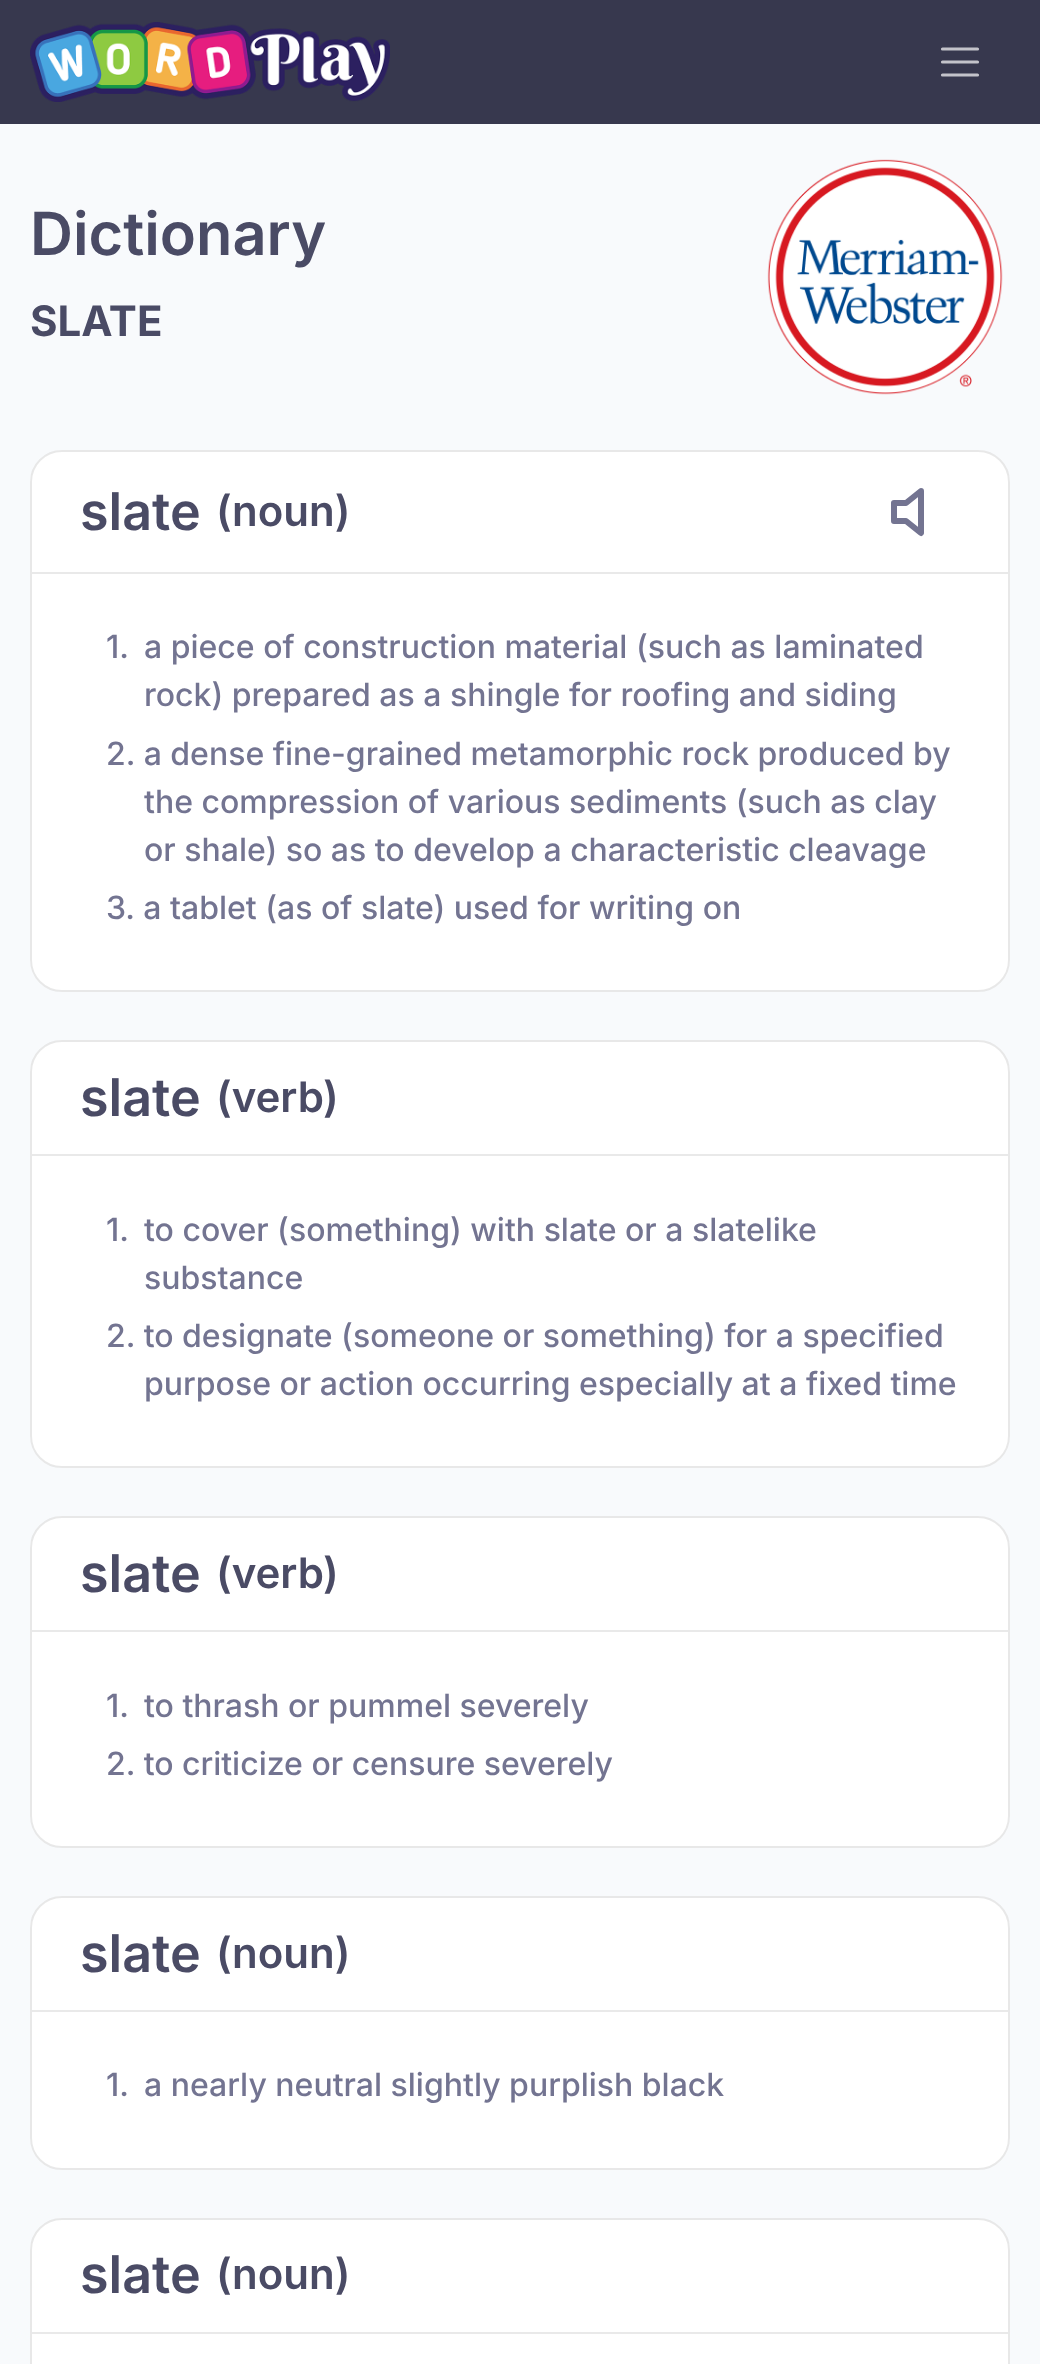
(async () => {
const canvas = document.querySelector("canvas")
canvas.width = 1040
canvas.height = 2364
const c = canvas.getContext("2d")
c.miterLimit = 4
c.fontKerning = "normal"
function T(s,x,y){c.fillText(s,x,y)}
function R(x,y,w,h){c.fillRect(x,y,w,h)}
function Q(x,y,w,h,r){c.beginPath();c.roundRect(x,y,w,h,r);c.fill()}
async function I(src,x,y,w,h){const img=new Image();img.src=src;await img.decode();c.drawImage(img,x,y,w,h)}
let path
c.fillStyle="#f8fafc"
R(0,0,1040,2364)
c.fillStyle="#37384e"
R(0,0,1040,124)
await I("1.png",30,22,360,80)
path = new Path2D("M942.5 49h35m-35 13h35m-35 13h35")
c.strokeStyle="#c3c3ca"
c.lineWidth=3.2
c.lineCap="round"
c.stroke(path)
c.font="600 59.5px Inter"
c.fillStyle="#4a4b65"
T("Dictionary",30,255)
c.font="bold 42px Inter"
T("SLATE",30,336)
await I("2.png",767,159,236,236)
c.fillStyle="#fff"
Q(30,450,980,542,32)
c.beginPath()
c.roundRect(31,451,978,540,31)
c.strokeStyle="#00000017"
c.lineWidth=2
c.stroke()
c.fillStyle="#e9e9e9"
R(32,572,976,2)
c.font="600 52px Inter"
c.fillStyle="#4a4b65"
T("slate",80,530)
c.font="600 42px Inter"
T("(",216,526)
T("noun)",232,526)
path = new Path2D("M921 491l-15 12h-12v18h12l15 12z")
c.strokeStyle="#737491"
c.lineWidth=6
c.lineJoin="round"
c.stroke(path)
c.font="500 32px Inter"
c.fillStyle="#737491"
T("1.",106,658)
T("a piece of construction material (such as laminated",144,658)
T("rock) prepared as a shingle for roofing and siding",144,706)
T("2. a dense fine-grained metamorphic rock produced by",106,765)
T("the compression of various sediments (such as clay",144,813)
T("or shale) so as to develop a characteristic cleavage",144,861)
T("3. a tablet (as of slate) used for writing on",106,919)
c.fillStyle="#fff"
Q(30,1040,980,428,32)
c.beginPath()
c.roundRect(31,1041,978,426,31)
c.strokeStyle="#00000017"
c.lineWidth=2
c.lineJoin="miter"
c.stroke()
c.fillStyle="#e9e9e9"
R(32,1154,976,2)
c.font="600 52px Inter"
c.fillStyle="#4a4b65"
T("slate",80,1116)
c.font="600 42px Inter"
T("(verb",216,1112)
T(")",323,1112)
c.font="500 32px Inter"
c.fillStyle="#737491"
T("1.",106,1241)
T("to cover (something) with slate or a slatelike",144,1241)
T("substance",144,1289)
T("2. to designate (someone or something) for a specified",106,1347)
T("purpose or action occurring especially at a fixed time",144,1395)
c.fillStyle="#fff"
Q(30,1516,980,332,32)
c.beginPath()
c.roundRect(31,1517,978,330,31)
c.stroke()
c.fillStyle="#e9e9e9"
R(32,1630,976,2)
c.font="600 52px Inter"
c.fillStyle="#4a4b65"
T("slate",80,1592)
c.font="600 42px Inter"
T("(verb",216,1588)
T(")",323,1588)
c.font="500 32px Inter"
c.fillStyle="#737491"
T("1.",106,1717)
T("to thrash or pummel severely",144,1717)
T("2. to criticize or censure severely",106,1775)
c.fillStyle="#fff"
Q(30,1896,980,274,32)
c.beginPath()
c.roundRect(31,1897,978,272,31)
c.stroke()
c.fillStyle="#e9e9e9"
R(32,2010,976,2)
c.font="600 52px Inter"
c.fillStyle="#4a4b65"
T("slate",80,1972)
c.font="600 42px Inter"
T("(",216,1968)
T("noun)",232,1968)
c.font="500 32px Inter"
c.fillStyle="#737491"
T("1.",106,2096)
T("a nearly neutral slightly purplish black",144,2096)
c.fillStyle="#fff"
Q(30,2218,980,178,32)
c.beginPath()
c.roundRect(31,2219,978,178,31)
c.stroke()
c.fillStyle="#e9e9e9"
R(32,2332,976,2)
c.font="600 52px Inter"
c.fillStyle="#4a4b65"
T("slate",80,2293)
c.font="600 42px Inter"
T("(",216,2289)
T("noun)",232,2289)
})()
